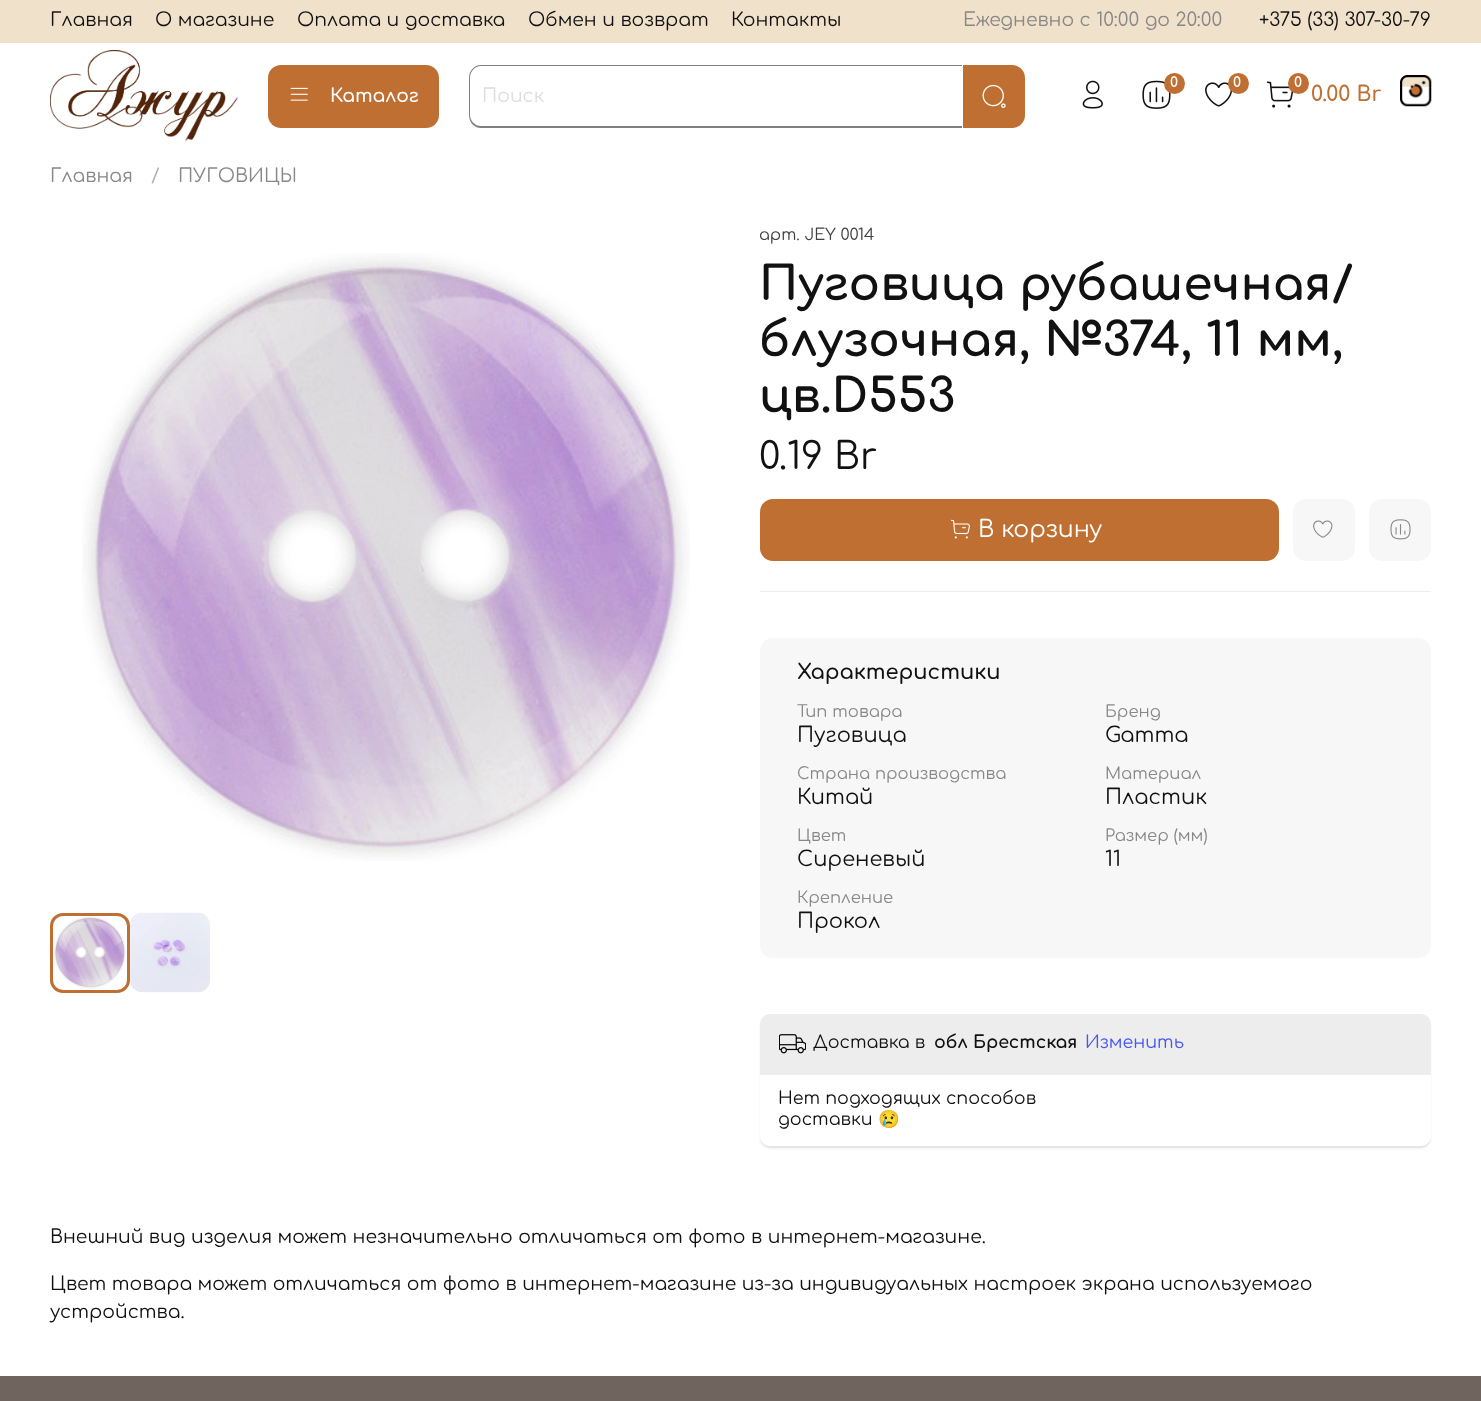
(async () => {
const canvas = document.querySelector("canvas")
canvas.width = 1481
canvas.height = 1401
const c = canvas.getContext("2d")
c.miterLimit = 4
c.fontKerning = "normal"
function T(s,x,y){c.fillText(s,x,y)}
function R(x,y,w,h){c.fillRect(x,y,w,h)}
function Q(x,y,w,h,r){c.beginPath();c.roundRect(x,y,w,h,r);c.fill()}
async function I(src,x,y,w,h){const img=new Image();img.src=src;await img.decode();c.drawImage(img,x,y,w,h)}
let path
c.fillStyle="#fff"
R(0,0,1481,1401)
c.fillStyle="#f0e1ca"
R(0,0,1481,43)
c.font="18.75px Comfortaa"
c.fillStyle="#111"
T("Главная",50,26)
T("О магазине",155,26)
T("Оплата и доставка",297,26)
T("Обмен и возврат",528,26)
T("Контакты",731,26)
c.fillStyle="#888"
T("Ежедневно с 10:00 до 20:00",963,26)
c.fillStyle="#111"
T("+375 (33) 307-30-79",1259,26)
await I("1.png",50,50,188,92)
c.fillStyle="#bf6f32"
Q(268,65,171,63,13)
await I("2.png",290,87,18,14)
c.font="600 18.75px Comfortaa"
c.fillStyle="#fff"
T("Каталог",330,102)
c.fillStyle="#808080"
path = new Path2D("M481 65h481v63h-481c-7 0-12-6-12-13v-37c0-7 5-13 12-13zm0 1h481v60h-481c-6 0-11-5-11-11v-37c0-7 5-12 11-12z")
c.fill(path,"evenodd")
c.font="18.75px Comfortaa"
c.fillStyle="#ddd"
T("Поиск",482,102)
c.fillStyle="#bf6f32"
c.beginPath()
c.roundRect(963,65,62,63,[0,13,13,0])
c.fill()
await I("3.png",982,84,24,24)
await I("4.png",1082,80,21,29)
await I("5.png",1142,80,29,29)
c.beginPath()
c.arc(1174.5,83.5,10.5,0,7)
c.fill()
c.font="bold 14px Comfortaa"
c.fillStyle="#fff"
T("0",1170,87)
await I("6.png",1205,82,27,25)
c.fillStyle="#bf6f32"
c.beginPath()
c.arc(1238.5,83.5,10.5,0,7)
c.fill()
c.fillStyle="#fff"
T("0",1233,87)
await I("7.png",1266,81,28,27)
c.fillStyle="#bf6f32"
c.beginPath()
c.arc(1298.5,83.5,10.5,0,7)
c.fill()
c.fillStyle="#fff"
T("0",1294,87)
c.font="600 21px Comfortaa"
c.fillStyle="#bf6f32"
T("0.00 Br",1311,101)
await I("8.png",1400,75,32,32)
c.font="18.75px Comfortaa"
c.fillStyle="#888"
T("Главная",50,182)
c.fillStyle="#acacac"
T("/",151,182)
c.fillStyle="#888"
T("ПУГОВИЦЫ",178,182)
await I("9.png",82,253,608,608)
await I("10.png",54,916,72,73)
c.beginPath()
c.roundRect(51.5,914.5,77,77,11.5)
c.strokeStyle="#bf6f32"
c.lineWidth=3
c.stroke()
await I("11.png",130,912,80,81)
c.font="16px Comfortaa"
c.fillStyle="#414141"
T("арт. JEY 0014",759,240)
c.font="bold 46.9px Comfortaa"
c.fillStyle="#111"
T("Пуговица рубашечная/",759,300)
T("блузочная, №374, 11 мм,",759,356)
T("цв.D553",759,412)
c.font="37.5px Comfortaa"
T("0.19 Br",759,469)
c.fillStyle="#bf6f32"
Q(760,499,519,62,13)
await I("12.png",951,519,19,20)
c.font="23.5px Comfortaa"
c.fillStyle="#fff"
T("В корзину",978,537)
c.fillStyle="#f7f7f7"
Q(1293,499,62,62,13)
await I("13.png",1313,520,20,18)
Q(1369,499,62,62,13)
await I("14.png",1390,519,21,21)
c.fillStyle="#ededed"
R(760,591,671,1)
c.fillStyle="#f7f7f7"
Q(760,638,671,320,13)
c.font="600 21px Comfortaa"
c.fillStyle="#111"
T("Характеристики",797,679)
c.font="16.4px Comfortaa"
c.fillStyle="#888"
T("Тип товара",797,717)
c.font="21px Comfortaa"
c.fillStyle="#111"
T("Пуговица",797,742)
c.font="16.4px Comfortaa"
c.fillStyle="#888"
T("Бренд",1105,717)
c.font="21px Comfortaa"
c.fillStyle="#111"
T("Gamma",1105,742)
c.font="16.4px Comfortaa"
c.fillStyle="#888"
T("Страна производства",797,779)
c.font="21px Comfortaa"
c.fillStyle="#111"
T("Китай",797,804)
c.font="16.4px Comfortaa"
c.fillStyle="#888"
T("Материал",1105,779)
c.font="21px Comfortaa"
c.fillStyle="#111"
T("Пластик",1105,804)
c.font="16.4px Comfortaa"
c.fillStyle="#888"
T("Цвет",797,841)
c.font="21px Comfortaa"
c.fillStyle="#111"
T("Сиреневый",797,866)
c.font="16.4px Comfortaa"
c.fillStyle="#888"
T("Размер (мм)",1105,841)
c.font="21px Comfortaa"
c.fillStyle="#111"
T("11",1105,866)
c.font="16.4px Comfortaa"
c.fillStyle="#888"
T("Крепление",797,903)
c.font="21px Comfortaa"
c.fillStyle="#111"
T("Прокол",797,928)
c.save()
path = new Path2D("M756 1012h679v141h-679zm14 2h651c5.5 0 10 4.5 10 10v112c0 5.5-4.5 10-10 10h-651c-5.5 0-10-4.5-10-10v-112c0-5.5 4.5-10 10-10z")
c.clip(path,"evenodd")
c.fillStyle="#0000000d"
c.filter="blur(1px)"
c.beginPath()
c.roundRect(760,1016,671,133,10)
c.fill()
c.filter="none"
c.restore()
c.save()
path = new Path2D("M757 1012h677v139h-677zm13 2h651c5.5 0 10 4.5 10 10v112c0 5.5-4.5 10-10 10h-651c-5.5 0-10-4.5-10-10v-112c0-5.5 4.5-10 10-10z")
c.clip(path,"evenodd")
c.fillStyle="#0000000d"
c.filter="blur(0.5px)"
c.beginPath()
c.roundRect(760,1015,671,133,10)
c.fill()
c.filter="none"
c.restore()
c.fillStyle="#ededed"
c.beginPath()
c.roundRect(760,1014,671,61,[10,10,0,0])
c.fill()
await I("15.png",779,1034,27,20)
c.font="17.5px Comfortaa"
c.fillStyle="#111"
T("Доставка в",813,1048)
c.font="bold 17.5px Comfortaa"
T("обл Брестская",934,1048)
c.font="17.5px Comfortaa"
c.fillStyle="#4657ef"
T("Изменить",1085,1048)
c.fillStyle="#111"
T("Нет подходящих способов",778,1104)
T("доставки",778,1125)
c.font="17.5px Noto Color Emoji"
T("😢",878,1125)
c.font="18.75px Comfortaa"
T("Внешний вид изделия может незначительно отличаться от фото в интернет-магазине.",50,1243)
T("Цвет товара может отличаться от фото в интернет-магазине из-за индивидуальных настроек экрана используемого",50,1290)
T("устройства.",50,1318)
c.fillStyle="#6f645e"
R(0,1376,1481,25)
})()
